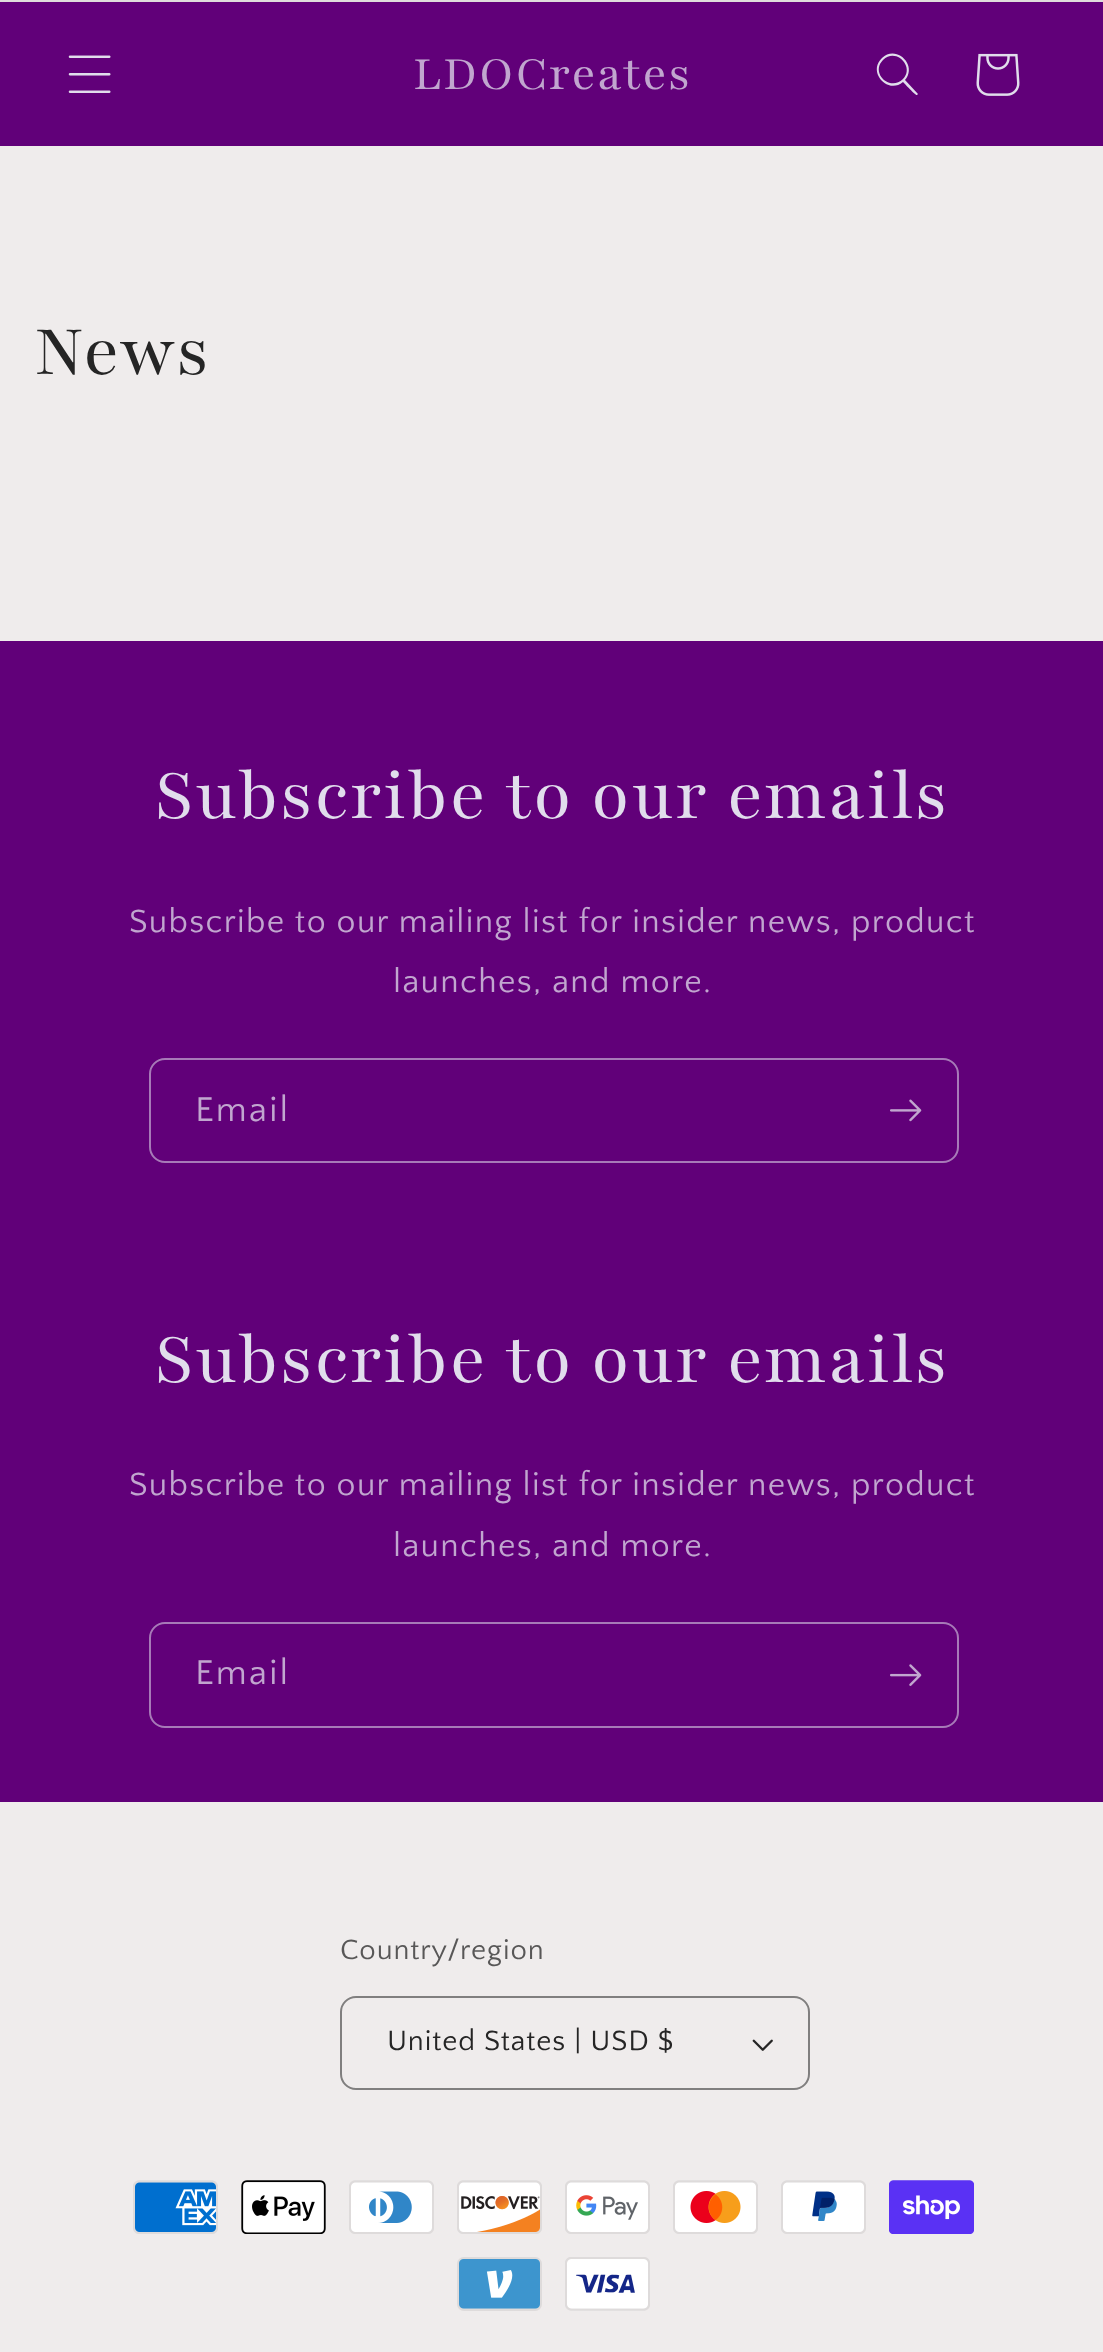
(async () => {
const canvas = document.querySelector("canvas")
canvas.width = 1103
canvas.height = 2352
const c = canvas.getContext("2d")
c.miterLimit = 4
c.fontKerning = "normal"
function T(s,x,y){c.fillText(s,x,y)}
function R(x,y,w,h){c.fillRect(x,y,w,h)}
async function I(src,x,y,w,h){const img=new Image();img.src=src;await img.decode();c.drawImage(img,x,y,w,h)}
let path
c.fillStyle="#efecec"
R(0,0,1103,2352)
c.fillStyle="#dfdcdc"
R(0,0,1103,2)
c.fillStyle="#610079"
R(0,2,1103,144)
await I("1.png",68,55,43,38)
c.letterSpacing="1.55px"
c.font="51.75px 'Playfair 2'"
c.fillStyle="#c1a6cf"
T("LDOCreates",413,89)
c.fillStyle="#e1ddec"
path = new Path2D("M903 79c-13 13-33-6-20-19c13-13 32 7 20 19zm0 3c-15 13-36-10-21-24c14-14 36 7 23 22l13 14l-1 1c-1 1-12-11-14-13z")
c.fill(path,"evenodd")
await I("2.png",976,53,44,43)
c.font="77.6px Playfair"
c.fillStyle="#252525"
T("News",34,374)
c.fillStyle="#610079"
R(0,641,1103,1161)
c.fillStyle="#e1ddec"
T("Subscribe to our emails",155,818)
c.letterSpacing="1.35px"
c.font="33.75px Quattrocento Sans"
c.fillStyle="#c1a6cf"
T("Subscribe to our mailing list for insider news, product",129,932)
T("launches, and more.",393,992)
c.beginPath()
c.roundRect(150,1059,808,103,15)
c.strokeStyle="#a77ab8"
c.lineWidth=2
c.stroke()
c.letterSpacing="2.25px"
c.font="36px Quattrocento Sans"
T("Email",195,1121)
await I("3.png",890,1099,32,23)
c.letterSpacing="1.55px"
c.font="77.6px Playfair"
c.fillStyle="#e1ddec"
T("Subscribe to our emails",155,1382)
c.letterSpacing="1.35px"
c.font="33.75px Quattrocento Sans"
c.fillStyle="#c1a6cf"
T("Subscribe to our mailing list for insider news, product",129,1495)
T("launches, and more.",393,1556)
c.beginPath()
c.roundRect(150,1623,808,104,15)
c.stroke()
c.letterSpacing="2.25px"
c.font="36px Quattrocento Sans"
T("Email",195,1684)
await I("4.png",890,1664,32,22)
c.letterSpacing="0.9px"
c.font="29.25px Quattrocento Sans"
c.fillStyle="#585757"
T("Country/region",340,1959)
await I("5.png",752,2039,21,12)
c.beginPath()
c.roundRect(341,1997,468,92,15)
c.strokeStyle="#807f7f"
c.stroke()
c.fillStyle="#252525"
T("United States | USD $",387,2050)
await I("6.png",133,2180,85,54)
await I("7.png",241,2180,85,54)
await I("8.png",349,2180,85,54)
await I("9.png",457,2180,85,54)
await I("10.png",565,2180,85,54)
await I("11.png",673,2180,85,54)
await I("12.png",781,2180,85,54)
await I("13.png",889,2180,85,54)
await I("14.png",457,2257,85,54)
await I("15.png",565,2257,85,54)
})()
